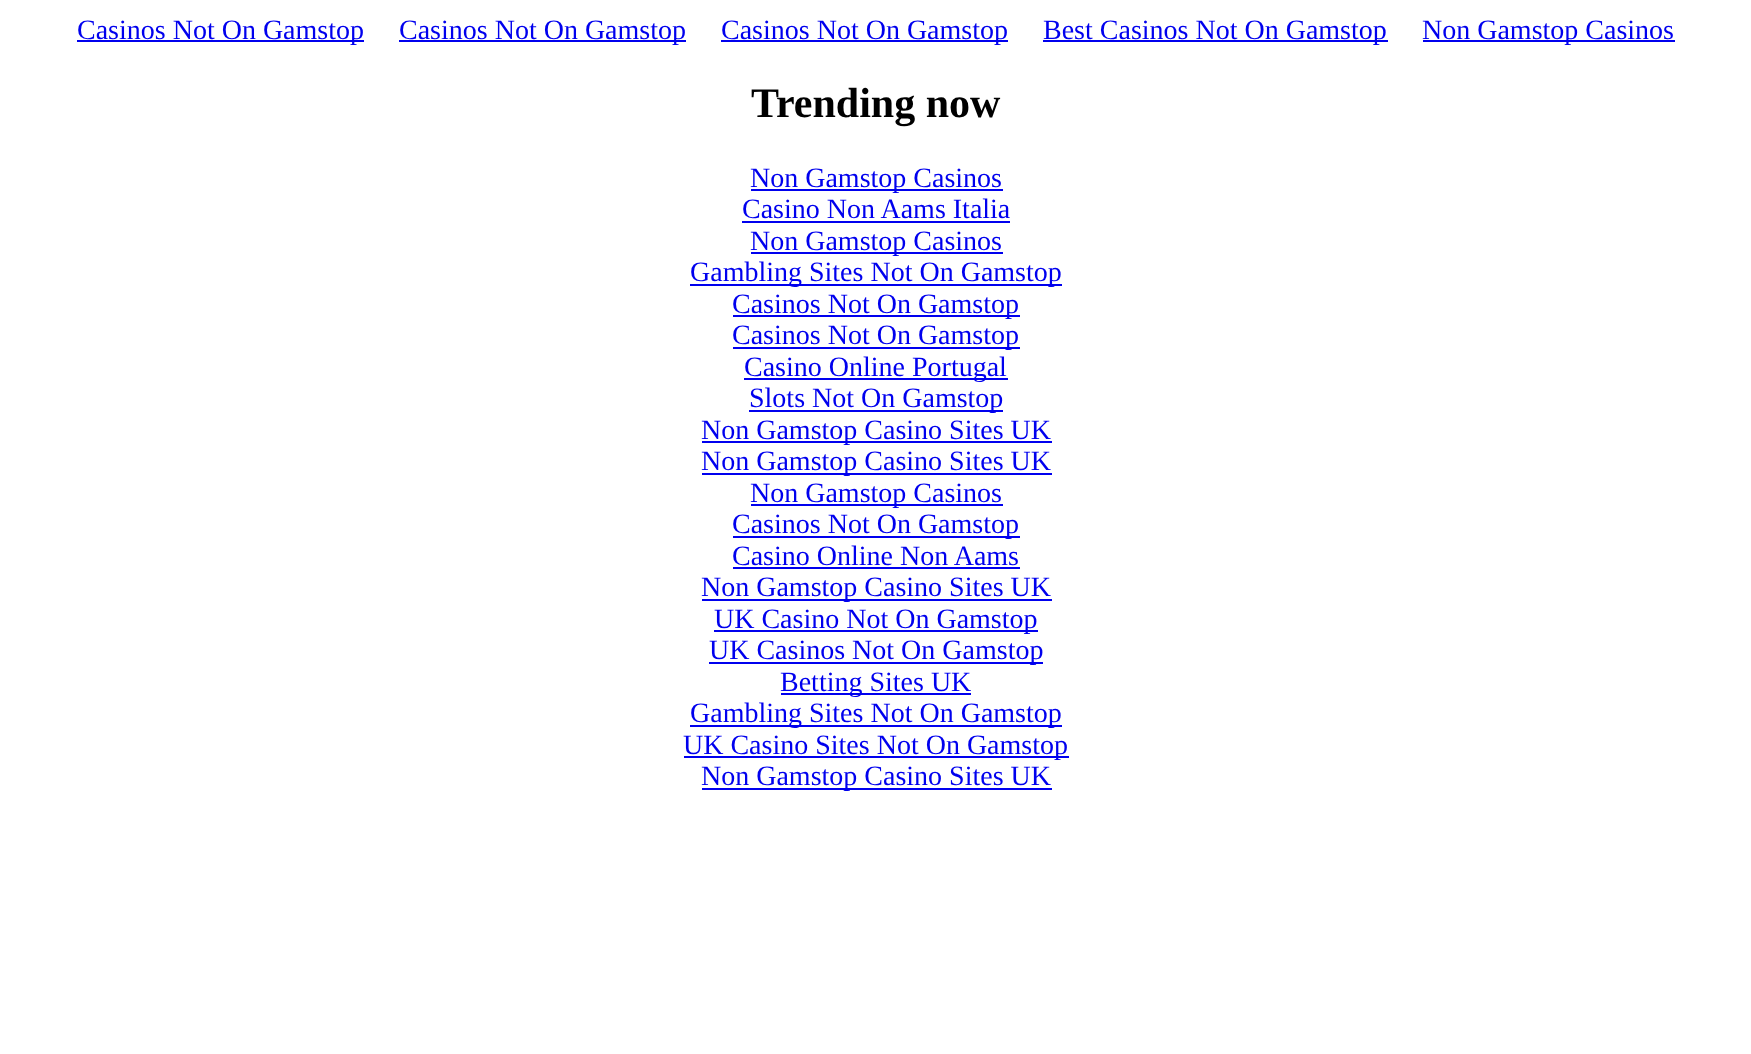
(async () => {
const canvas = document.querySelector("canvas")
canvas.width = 1751
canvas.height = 1054
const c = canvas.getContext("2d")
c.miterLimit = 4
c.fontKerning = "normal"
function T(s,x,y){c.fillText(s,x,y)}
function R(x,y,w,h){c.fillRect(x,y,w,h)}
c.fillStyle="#fff"
R(0,0,1751,1054)
c.fillStyle="#00e"
R(77,40,287,2)
c.font="28px Liberation Serif"
T("Casinos Not On Gamstop",77,39)
R(399,40,287,2)
T("Casinos Not On Gamstop",399,39)
R(721,40,287,2)
T("Casinos Not On Gamstop",721,39)
R(1043,40,345,2)
T("Best Casinos Not On Gamstop",1043,39)
R(1423,40,252,2)
T("Non Gamstop Casinos",1422,39)
c.font="bold 42px Liberation Serif"
c.fillStyle="#000"
T("Trending now",751,117)
c.fillStyle="#00e"
R(751,189,252,2)
c.font="28px Liberation Serif"
T("Non Gamstop Casinos",750,187)
T("Casino Non Aams Italia",742,218)
R(742,221,268,2)
R(751,252,252,2)
T("Non Gamstop Casinos",750,250)
R(690,284,372,2)
T("Gambling Sites Not On Gamstop",690,281)
R(733,315,287,2)
T("Casinos Not On Gamstop",732,313)
R(733,347,287,2)
T("Casinos Not On Gamstop",732,344)
R(744,378,264,2)
T("Casino Online Portugal",744,376)
R(749,410,254,2)
T("Slots Not On Gamstop",749,407)
R(702,441,350,2)
T("Non Gamstop Casino Sites UK",701,439)
R(702,473,350,2)
T("Non Gamstop Casino Sites UK",701,470)
R(751,504,252,2)
T("Non Gamstop Casinos",750,502)
R(733,536,287,2)
T("Casinos Not On Gamstop",732,533)
T("Casino Online Non Aams",732,565)
R(733,567,287,2)
R(702,599,350,2)
T("Non Gamstop Casino Sites UK",701,596)
R(714,630,324,2)
T("UK Casino Not On Gamstop",714,628)
R(709,662,334,2)
T("UK Casinos Not On Gamstop",709,659)
R(781,693,190,2)
T("Betting Sites UK",780,691)
R(690,725,372,2)
T("Gambling Sites Not On Gamstop",690,722)
R(684,756,385,2)
T("UK Casino Sites Not On Gamstop",683,754)
R(702,788,350,2)
T("Non Gamstop Casino Sites UK",701,785)
})()
